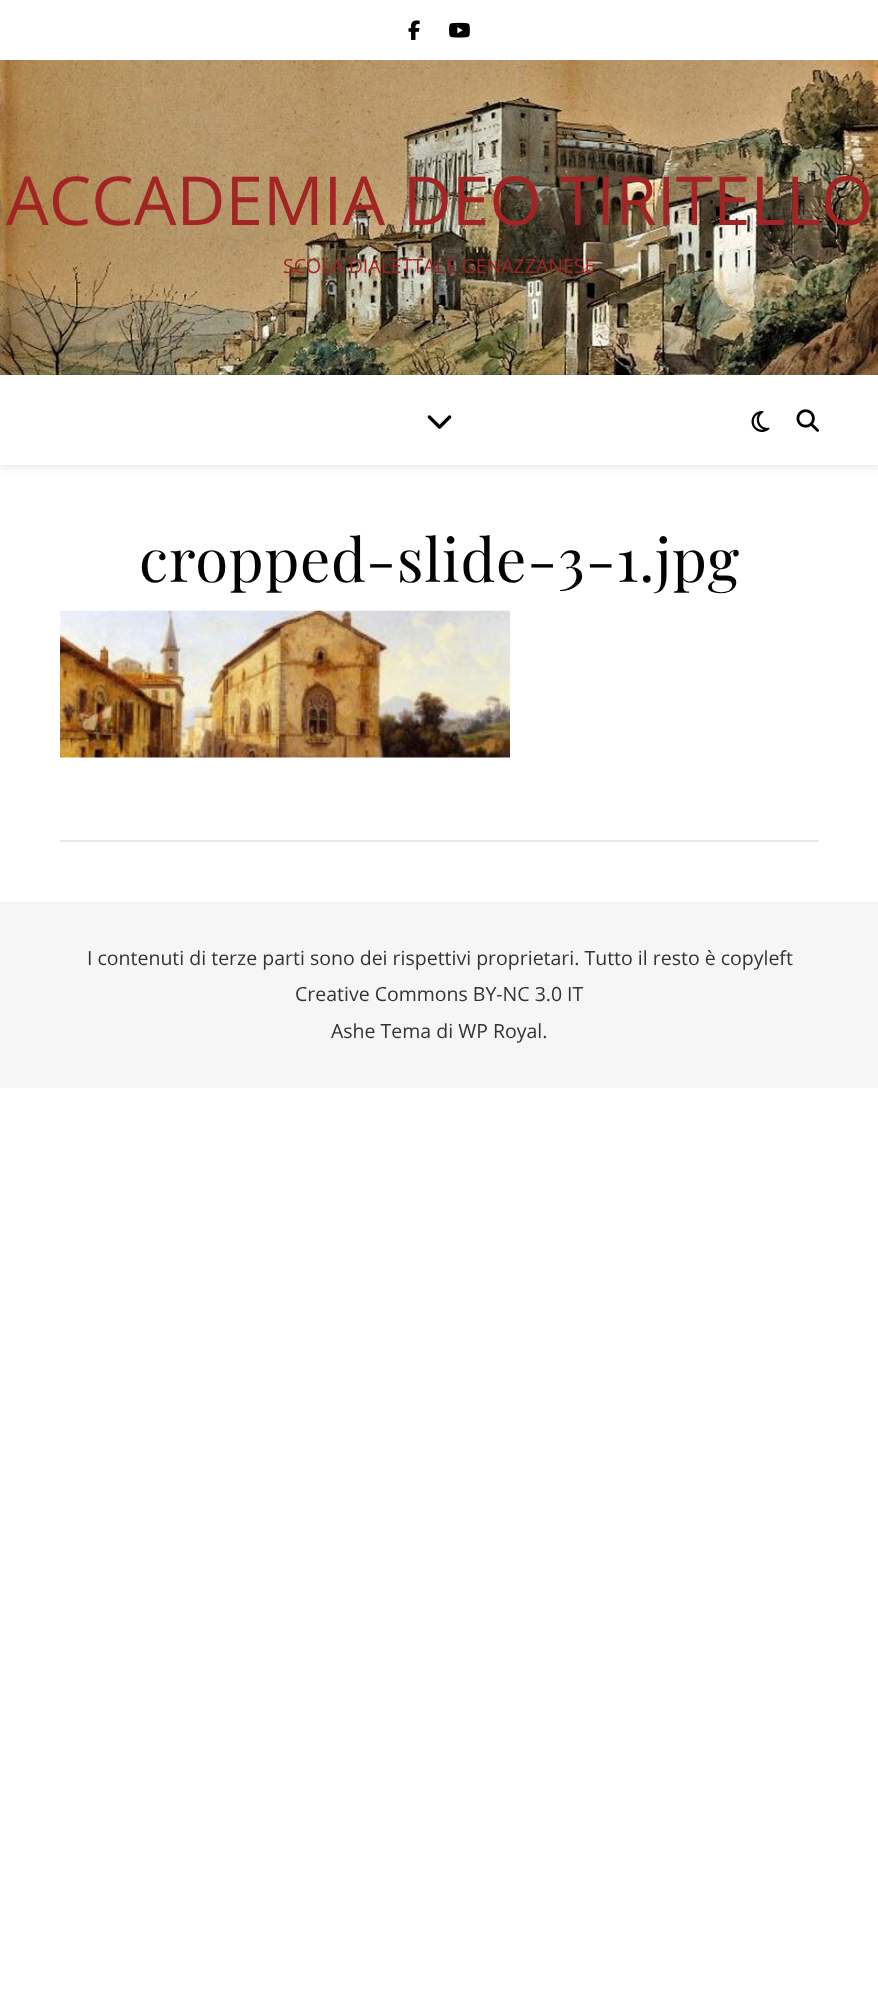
(async () => {
const canvas = document.querySelector("canvas")
canvas.width = 878
canvas.height = 1992
const c = canvas.getContext("2d")
c.miterLimit = 4
c.fontKerning = "normal"
function T(s,x,y){c.fillText(s,x,y)}
function R(x,y,w,h){c.fillRect(x,y,w,h)}
async function I(src,x,y,w,h){const img=new Image();img.src=src;await img.decode();c.drawImage(img,x,y,w,h)}
let path
c.fillStyle="#fff"
R(0,0,878,1992)
await I("1.png",408,20,12,20)
await I("2.png",449,22,21,16)
await I("3.png",0,60,878,315)
c.font="67.5px Open Sans"
c.fillStyle="#a32425"
T("ACCADEMIA DEO TIRITELLO",6,225)
c.font="19.5px Open Sans"
T("SCOLA DIALETTALE GENAZZANESE",283,273)
c.save()
path = new Path2D("M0 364h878v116h-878zm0 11h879v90h-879z")
c.clip(path,"evenodd")
c.fillStyle="#0000001a"
c.filter="blur(4px)"
c.beginPath()
c.rect(0,377,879,90)
c.fill()
c.filter="none"
c.restore()
await I("4.png",427,415,25,14)
await I("5.png",751,411,19,21)
await I("6.png",796,409,23,23)
c.letterSpacing="0.75px"
c.font="60px Playfair Display"
c.fillStyle="#030303"
T("cropped-slide-3-1.jpg",139,582)
await I("7.png",60,610,450,148)
c.fillStyle="#e8e8e8"
R(60,840,759,2)
c.fillStyle="#f6f6f6"
R(0,902,878,186)
c.letterSpacing="0px"
c.font="19.5px Open Sans"
c.fillStyle="#333"
T("I contenuti di terze parti sono dei rispettivi proprietari. Tutto il resto è copyleft",87,965)
T("Creative Commons BY-NC 3.0 IT",295,1001)
T("Ashe Tema di WP Royal.",331,1038)
})()
